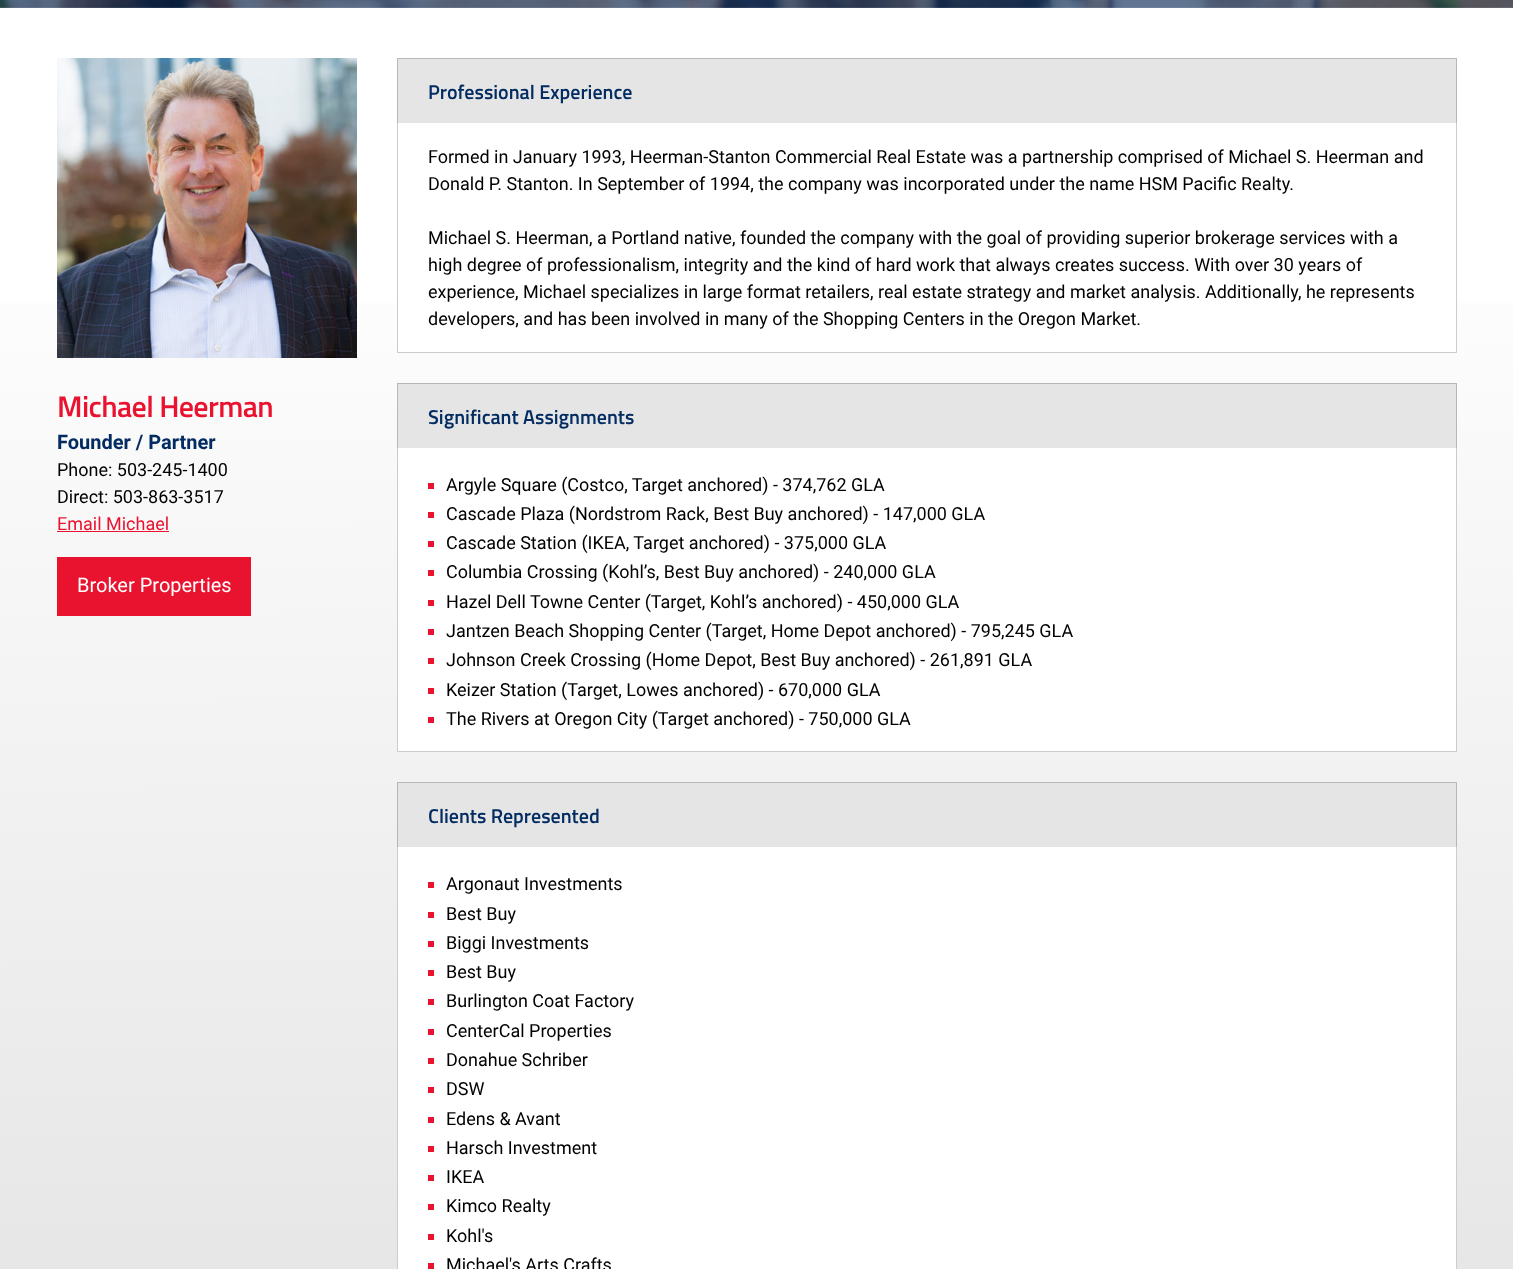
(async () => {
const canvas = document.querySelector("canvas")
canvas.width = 1513
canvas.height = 1269
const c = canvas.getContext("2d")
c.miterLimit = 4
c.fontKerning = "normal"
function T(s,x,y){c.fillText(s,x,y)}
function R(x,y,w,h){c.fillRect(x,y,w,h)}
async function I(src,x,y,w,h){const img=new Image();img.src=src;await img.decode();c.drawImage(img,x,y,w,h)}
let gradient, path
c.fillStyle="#fff"
R(0,0,1513,1269)
await I("1.png",0,0,1513,8)
gradient = c.createLinearGradient(756,8,757,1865)
gradient.addColorStop(.1,"#fff")
gradient.addColorStop(1,"#d9d9d9")
c.fillStyle = gradient
R(0,303,1513,966)
await I("2.png",57,58,300,300)
c.letterSpacing="-0.6px"
c.font="600 30px Titillium Web"
c.fillStyle="#e91330"
T("Michael Heerman",57,417)
c.letterSpacing="0px"
c.font="bold 20px Roboto"
c.fillStyle="#032c62"
T("Founder / Partner",57,449)
c.font="18px Roboto"
c.fillStyle="#000"
T("Phone: 503-245-1400",57,476)
T("Direct: 503-863-3517",57,503)
c.fillStyle="#e91330"
T("Email Michael",57,530)
R(57,531,112,1)
R(57,557,194,59)
c.font="20px Roboto"
c.fillStyle="#fff"
T("Broker Properties",77,592)
c.fillStyle="#e5e5e5"
R(397,58,1060,65)
c.fillStyle="#b7b7b7"
path = new Path2D("M397 58h1060l-1 1h-1058z")
c.fill(path)
c.fillStyle="#00000033"
path = new Path2D("M1457 58v65h-1v-64z")
c.fill(path)
path = new Path2D("M397 123v-65l1 1v64z")
c.fill(path)
c.font="600 20px Titillium Web"
c.fillStyle="#032c62"
T("Professional Experience",428,99)
c.fillStyle="#fff"
R(397,303,1060,50)
c.fillStyle="#ccc"
path = new Path2D("M1457 123v230l-1-1v-229z")
c.fill(path)
c.fillStyle="#00000033"
path = new Path2D("M1457 353h-1060l1-1h1058z")
c.fill(path)
path = new Path2D("M397 353v-230h1v229z")
c.fill(path)
c.font="18px Roboto"
c.fillStyle="#000"
T("Formed in January 1993, Heerman-Stanton Commercial Real Estate was a partnership comprised of Michael S. Heerman and",428,163)
T("Donald P. Stanton. In September of 1994, the company was incorporated under the name HSM Pacific Realty.",428,190)
T("Michael S. Heerman, a Portland native, founded the company with the goal of providing superior brokerage services with a",428,244)
T("high degree of professionalism, integrity and the kind of hard work that always creates success. With over 30 years of",428,271)
T("experience, Michael specializes in large format retailers, real estate strategy and market analysis. Additionally, he represents",428,298)
T("developers, and has been involved in many of the Shopping Centers in the Oregon Market.",428,325)
c.fillStyle="#e5e5e5"
R(397,383,1060,65)
c.fillStyle="#b7b7b7"
path = new Path2D("M397 383h1060l-1 1h-1058z")
c.fill(path)
c.fillStyle="#00000033"
path = new Path2D("M1457 383v65h-1v-64z")
c.fill(path)
path = new Path2D("M397 448v-65l1 1v64z")
c.fill(path)
c.font="600 20px Titillium Web"
c.fillStyle="#032c62"
T("Significant Assignments",428,424)
c.fillStyle="#fff"
R(397,448,1060,304)
c.fillStyle="#ccc"
path = new Path2D("M1457 448v304l-1-1v-303z")
c.fill(path)
c.fillStyle="#00000033"
path = new Path2D("M1457 752h-1060l1-1h1058z")
c.fill(path)
path = new Path2D("M397 752v-304h1v303z")
c.fill(path)
c.fillStyle="#e91330"
R(428,483,6,6)
c.font="18px Roboto"
c.fillStyle="#000"
T("Argyle Square (Costco, Target anchored) - 374,762 GLA",446,491)
c.fillStyle="#e91330"
R(428,512,6,6)
c.fillStyle="#000"
T("Cascade Plaza (Nordstrom Rack, Best Buy anchored) - 147,000 GLA",446,520)
c.fillStyle="#e91330"
R(428,541,6,6)
c.fillStyle="#000"
T("Cascade Station (IKEA, Target anchored) - 375,000 GLA",446,549)
c.fillStyle="#e91330"
R(428,570,6,6)
c.fillStyle="#000"
T("Columbia Crossing (Kohl’s, Best Buy anchored) - 240,000 GLA",446,578)
c.fillStyle="#e91330"
R(428,600,6,6)
c.fillStyle="#000"
T("Hazel Dell Towne Center (Target, Kohl’s anchored) - 450,000 GLA",446,608)
c.fillStyle="#e91330"
R(428,629,6,6)
c.fillStyle="#000"
T("Jantzen Beach Shopping Center (Target, Home Depot anchored) - 795,245 GLA",446,637)
c.fillStyle="#e91330"
R(428,658,6,6)
c.fillStyle="#000"
T("Johnson Creek Crossing (Home Depot, Best Buy anchored) - 261,891 GLA",446,666)
c.fillStyle="#e91330"
R(428,688,6,6)
c.fillStyle="#000"
T("Keizer Station (Target, Lowes anchored) - 670,000 GLA",446,696)
c.fillStyle="#e91330"
R(428,717,6,6)
c.fillStyle="#000"
T("The Rivers at Oregon City (Target anchored) - 750,000 GLA",446,725)
c.fillStyle="#e5e5e5"
R(397,782,1060,65)
c.fillStyle="#b7b7b7"
path = new Path2D("M397 782h1060l-1 1h-1058z")
c.fill(path)
c.fillStyle="#00000033"
path = new Path2D("M1457 782v65h-1v-64z")
c.fill(path)
path = new Path2D("M397 847v-65l1 1v64z")
c.fill(path)
c.font="600 20px Titillium Web"
c.fillStyle="#032c62"
T("Clients Represented",428,823)
c.fillStyle="#fff"
R(398,847,1058,422)
c.fillStyle="#ccc"
path = new Path2D("M1457 847v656l-1-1v-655z")
c.fill(path)
path = new Path2D("M397 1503v-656h1v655z")
c.fill(path)
c.fillStyle="#e91330"
R(428,882,6,6)
c.font="18px Roboto"
c.fillStyle="#000"
T("Argonaut Investments",446,890)
c.fillStyle="#e91330"
R(428,912,6,6)
c.fillStyle="#000"
T("Best Buy",446,920)
c.fillStyle="#e91330"
R(428,941,6,6)
c.fillStyle="#000"
T("Biggi Investments",446,949)
c.fillStyle="#e91330"
R(428,970,6,6)
c.fillStyle="#000"
T("Best Buy",446,978)
c.fillStyle="#e91330"
R(428,999,6,6)
c.fillStyle="#000"
T("Burlington Coat Factory",446,1007)
c.fillStyle="#e91330"
R(428,1029,6,6)
c.fillStyle="#000"
T("CenterCal Properties",446,1037)
c.fillStyle="#e91330"
R(428,1058,6,6)
c.fillStyle="#000"
T("Donahue Schriber",446,1066)
c.fillStyle="#e91330"
R(428,1087,6,6)
c.fillStyle="#000"
T("DSW",446,1095)
c.fillStyle="#e91330"
R(428,1117,6,6)
c.fillStyle="#000"
T("Edens & Avant",446,1125)
c.fillStyle="#e91330"
R(428,1146,6,6)
c.fillStyle="#000"
T("Harsch Investment",446,1154)
c.fillStyle="#e91330"
R(428,1175,6,6)
c.fillStyle="#000"
T("IKEA",446,1183)
c.fillStyle="#e91330"
R(428,1204,6,6)
c.fillStyle="#000"
T("Kimco Realty",446,1212)
c.fillStyle="#e91330"
R(428,1234,6,6)
c.fillStyle="#000"
T("Kohl's",446,1242)
c.fillStyle="#e91330"
R(428,1263,6,6)
c.fillStyle="#000"
T("Michael's Arts Crafts",446,1271)
})()
